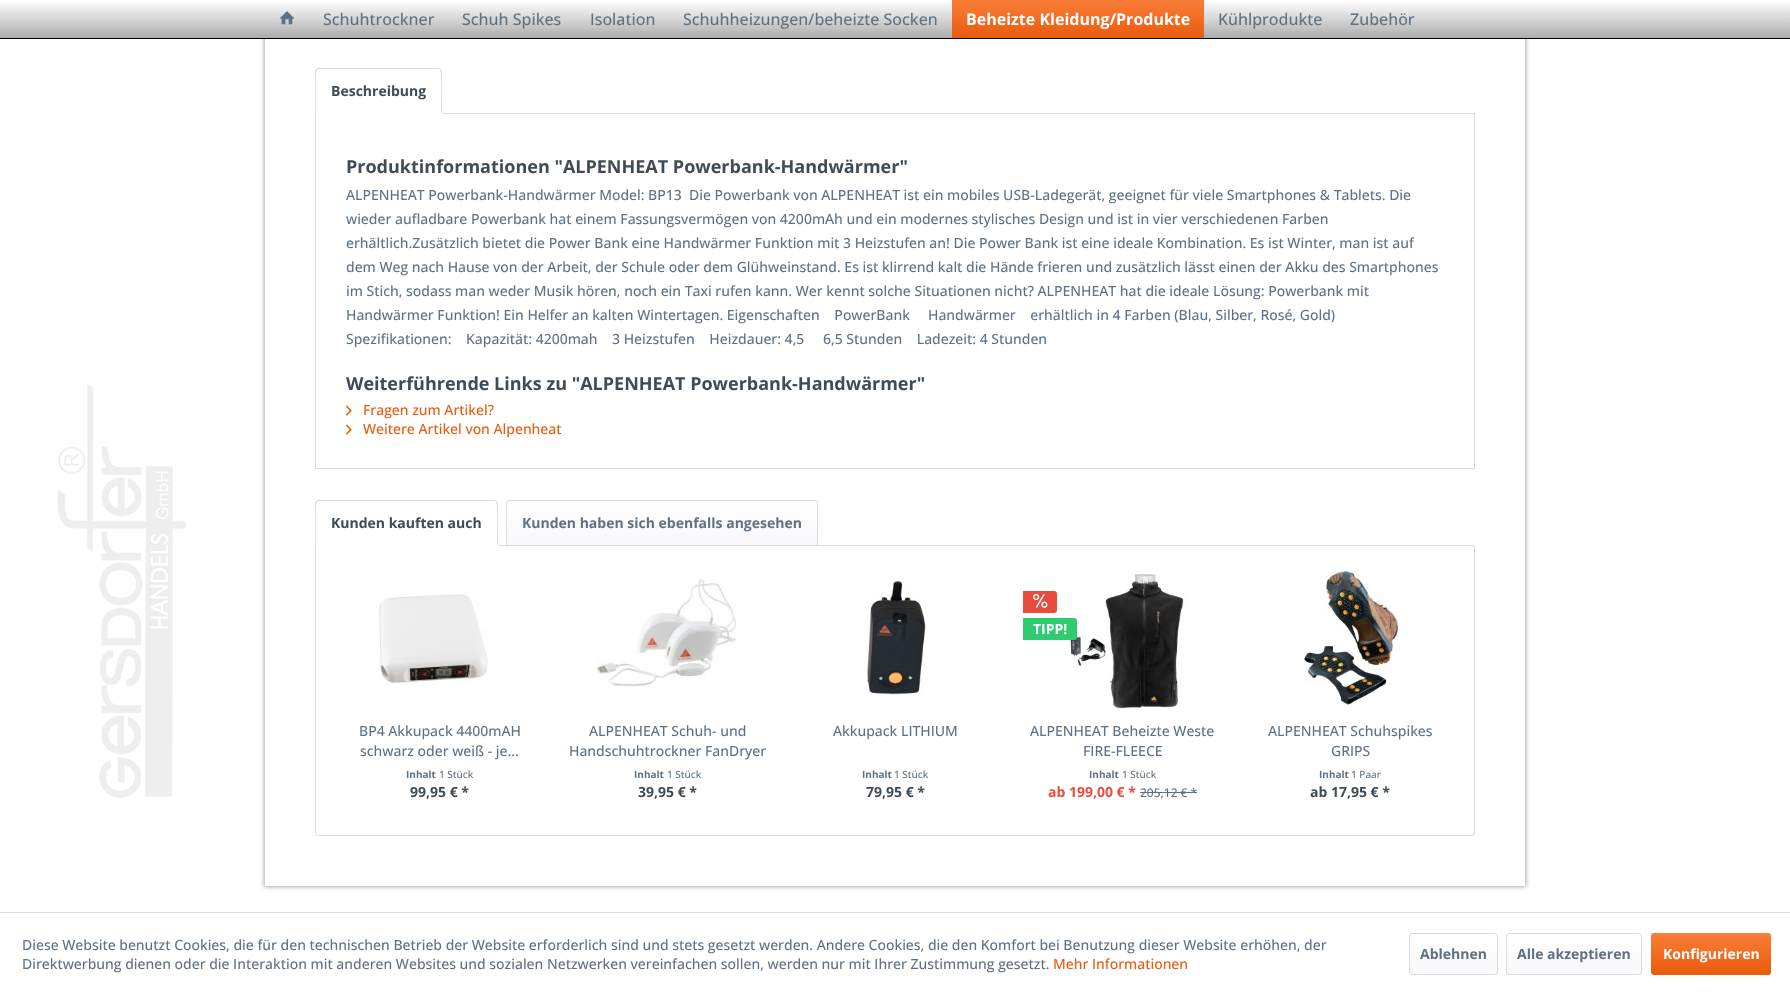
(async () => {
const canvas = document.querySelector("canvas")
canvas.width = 1790
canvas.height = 995
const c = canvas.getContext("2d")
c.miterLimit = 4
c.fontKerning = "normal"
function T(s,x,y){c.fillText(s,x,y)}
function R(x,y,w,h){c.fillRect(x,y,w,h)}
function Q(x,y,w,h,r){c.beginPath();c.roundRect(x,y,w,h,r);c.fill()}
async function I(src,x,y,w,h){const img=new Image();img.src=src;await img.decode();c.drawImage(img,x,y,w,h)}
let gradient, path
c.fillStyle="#fff"
R(0,0,1790,995)
await I("1.png",57,384,129,414)
c.save()
path = new Path2D("M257 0h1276v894h-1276zm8-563h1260v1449h-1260z")
c.clip(path,"evenodd")
c.fillStyle="#aaa"
c.filter="blur(2px)"
c.beginPath()
c.rect(264,-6,1262,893)
c.fill()
c.filter="none"
c.restore()
gradient = c.createLinearGradient(895,0,895,55)
gradient.addColorStop(0,"#fff")
gradient.addColorStop(1,"#888")
c.fillStyle = gradient
R(0,0,1790,38)
c.fillStyle="#000"
R(0,38,1790,1)
await I("2.png",279,11,16,14)
c.font="500 16px Open Sans"
c.fillStyle="#5f7285"
T("Schuhtrockner",323,25)
T("Schuh Spikes",462,25)
T("Isolation",590,25)
T("Schuhheizungen/beheizte Socken",683,25)
gradient = c.createLinearGradient(1078,0,1078,38)
gradient.addColorStop(0,"#fa7e39")
gradient.addColorStop(1,"#ea5b0c")
c.fillStyle = gradient
R(952,0,252,38)
c.font="bold 16px Open Sans"
c.fillStyle="#fff"
T("Beheizte Kleidung/Produkte",966,25)
c.font="500 16px Open Sans"
c.fillStyle="#5f7285"
T("Kühlprodukte",1218,25)
T("Zubehör",1350,25)
c.strokeStyle="#dadae5"
c.strokeRect(315.5,113.5,1159,355)
c.fillStyle="#fff"
c.beginPath()
c.roundRect(315,68,127,46,[3,3,0,0])
c.fill()
c.fillStyle="#dadae5"
path = new Path2D("M318 68l-2 1l1 1l1-1h121l1 1l1-1l-2-1z")
c.fill(path)
path = new Path2D("M442 114c0-5 1-43-1-45l-1 1c2 1 1 38 1 43z")
c.fill(path)
c.fillStyle="#fff"
path = new Path2D("M442 114l-1-1h-125l-1 1z")
c.fill(path)
c.fillStyle="#dadae5"
path = new Path2D("M315 114l1-1c0-5-1-42 1-43l-1-1l-1 2z")
c.fill(path)
c.font="bold 14px Open Sans"
c.fillStyle="#3f4c58"
T("Beschreibung",331,96)
c.font="bold 18px Open Sans"
T("Produktinformationen \"ALPENHEAT Powerbank-Handwärmer\"",346,173)
c.font="500 14px Open Sans"
c.fillStyle="#5f7285"
T("ALPENHEAT Powerbank-Handwärmer Model: BP13  Die Powerbank von ALPENHEAT ist ein mobiles USB-Ladegerät, geeignet für viele Smartphones & Tablets. Die",346,200)
T("wieder aufladbare Powerbank hat einem Fassungsvermögen von 4200mAh und ein modernes stylisches Design und ist in vier verschiedenen Farben",346,224)
T("erhältlich.Zusätzlich bietet die Power Bank eine Handwärmer Funktion mit 3 Heizstufen an! Die Power Bank ist eine ideale Kombination. Es ist Winter, man ist auf",346,248)
T("dem Weg nach Hause von der Arbeit, der Schule oder dem Glühweinstand. Es ist klirrend kalt die Hände frieren und zusätzlich lässt einen der Akku des Smartphones",346,272)
T("im Stich, sodass man weder Musik hören, noch ein Taxi rufen kann. Wer kennt solche Situationen nicht? ALPENHEAT hat die ideale Lösung: Powerbank mit",346,296)
T("Handwärmer Funktion! Ein Helfer an kalten Wintertagen. Eigenschaften    PowerBank",346,320)
T("Handwärmer    erhältlich in 4 Farben (Blau, Silber, Rosé, Gold)",928,320)
T("Spezifikationen:    Kapazität: 4200mah    3 Heizstufen    Heizdauer: 4,5",346,344)
T("6,5 Stunden    Ladezeit: 4 Stunden",823,344)
c.font="bold 18px Open Sans"
c.fillStyle="#3f4c58"
T("Weiterführende Links zu \"ALPENHEAT Powerbank-Handwärmer\"",346,390)
await I("3.png",346,405,6,11)
c.font="500 14px Open Sans"
c.fillStyle="#ea5b0c"
T("Fragen zum Artikel?",363,415)
await I("3.png",346,424,6,11)
T("Weitere Artikel von Alpenheat",363,434)
c.beginPath()
c.roundRect(315.5,545.5,1159,290,2.5)
c.stroke()
c.fillStyle="#fff"
c.beginPath()
c.roundRect(315,500,183,46,[3,3,0,0])
c.fill()
c.fillStyle="#dadae5"
path = new Path2D("M318 500l-2 1l1 1l1-1h177l1 1l1-1l-2-1z")
c.fill(path)
path = new Path2D("M498 546c0-5 1-43-1-45l-1 1c2 1 1 38 1 43z")
c.fill(path)
c.fillStyle="#fff"
path = new Path2D("M498 546l-1-1h-181l-1 1z")
c.fill(path)
c.fillStyle="#dadae5"
path = new Path2D("M315 546l1-1c0-5-1-42 1-43l-1-1l-1 2z")
c.fill(path)
c.font="bold 14px Open Sans"
c.fillStyle="#3f4c58"
T("Kunden kauften auch",331,528)
gradient = c.createLinearGradient(662,501,662,545)
gradient.addColorStop(0,"#fff")
gradient.addColorStop(1,"#f8f8fa")
c.fillStyle = gradient
c.beginPath()
c.roundRect(507,501,310,44,[2,2,0,0])
c.fill()
c.beginPath()
c.roundRect(506.5,500.5,311,45,[2.5,2.5,0,0])
c.stroke()
c.fillStyle="#5f7285"
T("Kunden haben sich ebenfalls angesehen",522,528)
await I("4.png",378,594,110,91)
c.font="500 14px Open Sans"
T("BP4 Akkupack 4400mAH",359,736)
T("schwarz oder weiß - je...",360,756)
c.font="bold 10px Open Sans"
T("Inhalt",406,778)
c.font="500 10px Open Sans"
T("1 Stück",439,778)
c.font="bold 14px Open Sans"
c.fillStyle="#3f4c58"
T("99,95 € *",410,797)
await I("5.png",596,579,141,108)
c.font="500 14px Open Sans"
c.fillStyle="#5f7285"
T("ALPENHEAT Schuh- und",589,736)
T("Handschuhtrockner FanDryer",569,756)
c.font="bold 10px Open Sans"
T("Inhalt",634,778)
c.font="500 10px Open Sans"
T("1 Stück",667,778)
c.font="bold 14px Open Sans"
c.fillStyle="#3f4c58"
T("39,95 € *",638,797)
await I("6.png",867,577,59,118)
c.font="500 14px Open Sans"
c.fillStyle="#5f7285"
T("Akkupack LITHIUM",833,736)
c.font="bold 10px Open Sans"
T("Inhalt",862,778)
c.font="500 10px Open Sans"
T("1 Stück",894,778)
c.font="bold 14px Open Sans"
c.fillStyle="#3f4c58"
T("79,95 € *",866,797)
c.fillStyle="#e74c3c"
c.beginPath()
c.roundRect(1023,591,34,22,[0,3,3,0])
c.fill()
await I("7.png",1033,593,15,15)
await I("8.png",1070,573,116,136)
c.fillStyle="#2ecc71"
c.beginPath()
c.roundRect(1023,618,54,22,[0,3,3,0])
c.fill()
c.fillStyle="#fff"
T("TIPP!",1033,634)
c.font="500 14px Open Sans"
c.fillStyle="#5f7285"
T("ALPENHEAT Beheizte Weste",1030,736)
T("FIRE-FLEECE",1083,756)
c.font="bold 10px Open Sans"
T("Inhalt",1089,778)
c.font="500 10px Open Sans"
T("1 Stück",1122,778)
c.font="bold 14px Open Sans"
c.fillStyle="#e74c3c"
T("ab 199,00 € *",1048,797)
c.font="500 12px Open Sans"
c.fillStyle="#5f7285"
T("205,12 € *",1140,797)
R(1140,792,57,1)
await I("9.png",1303,571,95,134)
c.font="500 14px Open Sans"
T("ALPENHEAT Schuhspikes",1268,736)
T("GRIPS",1331,756)
c.font="bold 10px Open Sans"
T("Inhalt",1319,778)
c.font="500 10px Open Sans"
T("1 Paar",1351,778)
c.font="bold 14px Open Sans"
c.fillStyle="#3f4c58"
T("ab 17,95 € *",1310,797)
c.fillStyle="#dadae5"
R(0,912,1790,1)
c.font="500 14px Open Sans"
c.fillStyle="#5f7285"
T("Diese Website benutzt Cookies, die für den technischen Betrieb der Website erforderlich sind und stets gesetzt werden. Andere Cookies, die den Komfort bei Benutzung dieser Website erhöhen, der",22,950)
T("Direktwerbung dienen oder die Interaktion mit anderen Websites und sozialen Netzwerken vereinfachen sollen, werden nur mit Ihrer Zustimmung gesetzt.",22,969)
c.fillStyle="#ea5b0c"
T("Mehr Informationen",1053,969)
gradient = c.createLinearGradient(1454,934,1454,974)
gradient.addColorStop(0,"#fff")
gradient.addColorStop(1,"#f8f8fa")
c.fillStyle = gradient
Q(1410,934,87,40,2)
c.beginPath()
c.roundRect(1409.5,933.5,88,41,2.5)
c.stroke()
c.font="bold 14px Open Sans"
c.fillStyle="#5f7285"
T("Ablehnen",1420,959)
gradient = c.createLinearGradient(1574,934,1574,974)
gradient.addColorStop(0,"#fff")
gradient.addColorStop(1,"#f8f8fa")
c.fillStyle = gradient
Q(1507,934,134,40,2)
c.beginPath()
c.roundRect(1506.5,933.5,135,41,2.5)
c.stroke()
c.fillStyle="#5f7285"
T("Alle akzeptieren",1517,959)
gradient = c.createLinearGradient(1711,933,1711,975)
gradient.addColorStop(0,"#fa7e39")
gradient.addColorStop(1,"#ea5b0c")
c.fillStyle = gradient
Q(1651,933,120,42,3)
c.fillStyle="#fff"
T("Konfigurieren",1663,959)
})()
